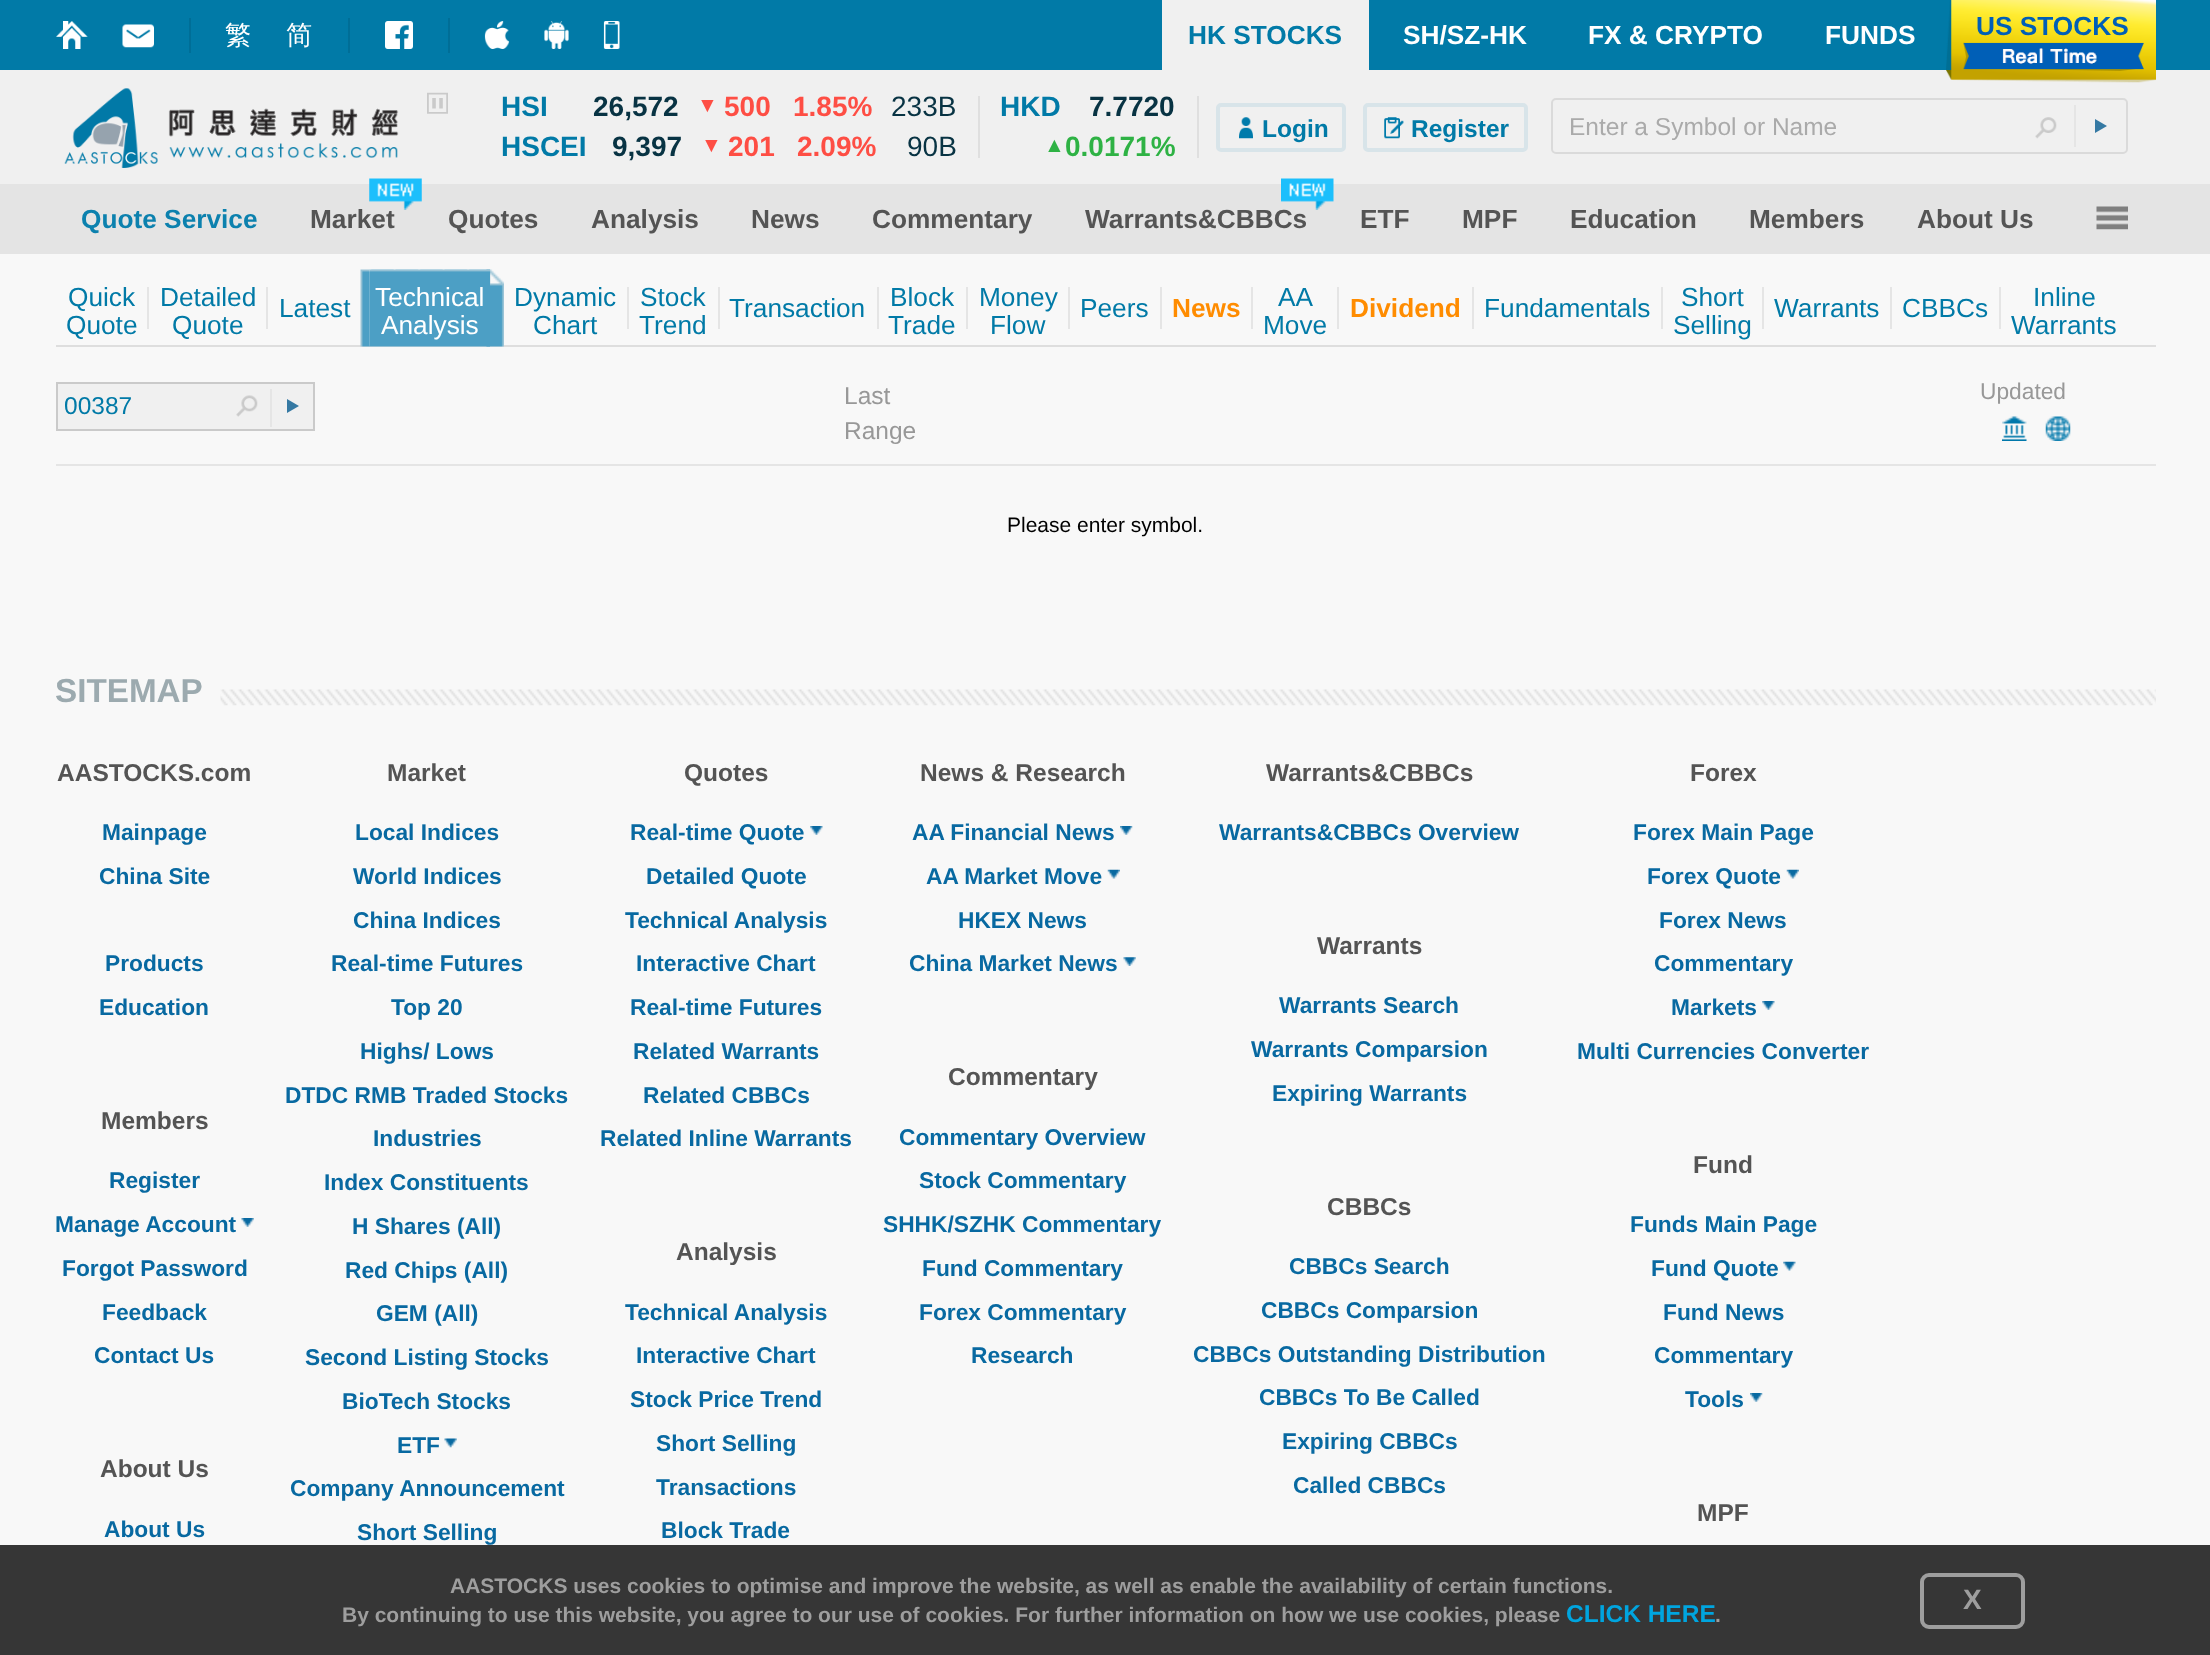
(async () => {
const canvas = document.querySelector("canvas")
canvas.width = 2210
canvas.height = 1655
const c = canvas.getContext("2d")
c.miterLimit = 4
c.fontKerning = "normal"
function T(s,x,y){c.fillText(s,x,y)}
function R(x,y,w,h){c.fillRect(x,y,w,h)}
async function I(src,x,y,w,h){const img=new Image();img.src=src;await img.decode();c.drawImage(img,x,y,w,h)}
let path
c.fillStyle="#f8f8f8"
R(0,0,2210,1655)
c.fillStyle="#f0f0f0"
R(0,70,2210,114)
c.fillStyle="#017aa7"
R(0,0,2210,70)
await I("1.png",56,21,32,28)
await I("2.png",122,24,32,24)
c.fillStyle="#006e97"
R(189,18,2,35)
c.font="500 26.25px WenQuanYi Zen Hei"
c.fillStyle="#fff"
T("繁",225,44)
T("简",286,44)
c.fillStyle="#006e97"
R(348,18,2,35)
await I("3.png",385,21,28,28)
R(448,18,2,35)
await I("4.png",484,21,26,28)
await I("5.png",544,21,25,28)
await I("6.png",603,21,17,28)
c.fillStyle="#f0f0f0"
R(1162,0,207,70)
c.font="bold 26.25px Liberation Sans"
c.fillStyle="#017aa7"
T("HK STOCKS",1188,44)
c.fillStyle="#fff"
T("SH/SZ-HK",1403,44)
T("FX & CRYPTO",1588,44)
T("FUNDS",1825,44)
await I("7.png",1946,0,210,83)
c.fillStyle="#005fb7"
T("US STOCKS",1976,35)
await I("8.png",64,88,335,80)
await I("9.png",427,92,21,22)
c.font="bold 28px Liberation Sans"
c.fillStyle="#017aa7"
T("HSI",501,116)
c.fillStyle="#083343"
T("26,572",593,116)
c.font="bold 21px Liberation Sans"
c.fillStyle="#fe4e44"
T("▼",697,112)
c.font="bold 28px Liberation Sans"
T("500",724,116)
T("1.85%",793,116)
c.font="28px Liberation Sans"
c.fillStyle="#083343"
T("233B",891,116)
c.font="bold 28px Liberation Sans"
c.fillStyle="#017aa7"
T("HSCEI",501,156)
c.fillStyle="#083343"
T("9,397",612,156)
c.font="bold 21px Liberation Sans"
c.fillStyle="#fe4e44"
T("▼",701,152)
c.font="bold 28px Liberation Sans"
T("201",728,156)
T("2.09%",797,156)
c.font="28px Liberation Sans"
c.fillStyle="#083343"
T("90B",907,156)
c.fillStyle="#dfdfdf"
R(978,96,2,62)
c.font="bold 28px Liberation Sans"
c.fillStyle="#017aa7"
T("HKD",1000,116)
c.fillStyle="#083343"
T("7.7720",1089,116)
c.font="bold 21px Liberation Sans"
c.fillStyle="#2eb244"
T("▲",1044,152)
c.font="bold 28px Liberation Sans"
T("0.0171%",1065,156)
c.fillStyle="#dfdfdf"
R(1197,96,2,62)
c.beginPath()
c.roundRect(1218,105,126,45,3)
c.strokeStyle="#d8e4e9"
c.lineWidth=4
c.stroke()
await I("10.png",1239,117,14,22)
c.font="bold 24.5px Liberation Sans"
c.fillStyle="#017aa7"
T("Login",1262,137)
c.beginPath()
c.roundRect(1365,105,161,45,3)
c.stroke()
await I("11.png",1384,117,20,22)
T("Register",1411,137)
c.beginPath()
c.roundRect(1552,99,575,54,4)
c.strokeStyle="#dadada"
c.lineWidth=2
c.stroke()
c.font="24.5px Liberation Sans"
c.fillStyle="#aaa"
T("Enter a Symbol or Name",1569,135)
await I("12.png",2035,117,22,22)
c.fillStyle="#e5e5e5"
R(2074,105,2,42)
c.fillStyle="#3579a3"
path = new Path2D("M2095 133v-14l12 7z")
c.fill(path)
c.fillStyle="#e4e4e4"
R(0,184,2210,70)
c.font="bold 26.25px Liberation Sans"
c.fillStyle="#0c81ae"
T("Quote Service",81,228)
c.fillStyle="#545454"
T("Market",310,228)
await I("13.png",369,178,53,32)
T("Quotes",448,228)
T("Analysis",591,228)
T("News",751,228)
T("Commentary",872,228)
T("Warrants&CBBCs",1085,228)
await I("14.png",1281,178,53,32)
T("ETF",1360,228)
T("MPF",1462,228)
T("Education",1570,228)
T("Members",1749,228)
T("About Us",1917,228)
await I("15.png",2096,206,32,24)
c.fillStyle="#dedede"
R(56,345,2100,2)
c.font="26.25px Liberation Sans"
c.fillStyle="#017aa7"
T("Quick",68,306)
T("Quote",66,334)
c.fillStyle="#e5e5e5"
R(147,287,2,42)
c.fillStyle="#017aa7"
T("Detailed",160,306)
T("Quote",172,334)
c.fillStyle="#e5e5e5"
R(266,287,2,42)
c.fillStyle="#017aa7"
T("Latest",279,317)
await I("16.png",360,269,10,78)
await I("18.png",486,269,18,78)
await I("17.png",369,269,121,78)
c.fillStyle="#fff"
T("Technical",375,306)
T("Analysis",381,334)
c.fillStyle="#017aa7"
T("Dynamic",514,306)
T("Chart",533,334)
c.fillStyle="#e5e5e5"
R(627,287,2,42)
c.fillStyle="#017aa7"
T("Stock",640,306)
T("Trend",639,334)
c.fillStyle="#e5e5e5"
R(718,287,2,42)
c.fillStyle="#017aa7"
T("Transaction",729,317)
c.fillStyle="#e5e5e5"
R(877,287,2,42)
c.fillStyle="#017aa7"
T("Block",890,306)
T("Trade",888,334)
c.fillStyle="#e5e5e5"
R(966,287,2,42)
c.fillStyle="#017aa7"
T("Money",979,306)
T("Flow",990,334)
c.fillStyle="#e5e5e5"
R(1068,287,2,42)
c.fillStyle="#017aa7"
T("Peers",1080,317)
c.fillStyle="#e5e5e5"
R(1160,287,2,42)
c.font="bold 26.25px Liberation Sans"
c.fillStyle="#ff8c00"
T("News",1172,317)
c.fillStyle="#e5e5e5"
R(1251,287,2,42)
c.font="26.25px Liberation Sans"
c.fillStyle="#017aa7"
T("AA",1278,306)
T("Move",1263,334)
c.fillStyle="#e5e5e5"
R(1337,287,2,42)
c.font="bold 26.25px Liberation Sans"
c.fillStyle="#ff8c00"
T("Dividend",1350,317)
c.fillStyle="#e5e5e5"
R(1472,287,2,42)
c.font="26.25px Liberation Sans"
c.fillStyle="#017aa7"
T("Fundamentals",1484,317)
c.fillStyle="#e5e5e5"
R(1661,287,2,42)
c.fillStyle="#017aa7"
T("Short",1681,306)
T("Selling",1673,334)
c.fillStyle="#e5e5e5"
R(1762,287,2,42)
c.fillStyle="#017aa7"
T("Warrants",1774,317)
c.fillStyle="#e5e5e5"
R(1890,287,2,42)
c.fillStyle="#017aa7"
T("CBBCs",1902,317)
c.fillStyle="#e5e5e5"
R(1999,287,2,42)
c.fillStyle="#017aa7"
T("Inline",2033,306)
T("Warrants",2011,334)
c.fillStyle="#e5e5e5"
R(56,464,2100,2)
c.fillStyle="#f0f0f0"
c.beginPath()
c.rect(57,383,257,47)
c.fill()
c.strokeStyle="#cacaca"
c.stroke()
c.save()
c.beginPath()
c.rect(65,392,171,30)
c.clip()
c.font="24.5px Liberation Sans"
c.fillStyle="#017aa7"
T("00387",64,414)
c.restore()
await I("19.png",236,395,22,22)
c.fillStyle="#e5e5e5"
R(270,389,2,38)
c.fillStyle="#3579a3"
path = new Path2D("M287 413v-14l12 7z")
c.fill(path)
c.font="24.5px Liberation Sans"
c.fillStyle="#989898"
T("Last",844,404)
T("Range",844,439)
c.font="22.75px Liberation Sans"
T("Updated",1980,399)
await I("20.png",2002,416,25,25)
await I("21.png",2045,416,26,25)
c.font="21px Liberation Sans"
c.fillStyle="#000"
T("Please enter symbol.",1007,532)
c.font="bold 33.25px Liberation Sans"
c.fillStyle="#9caaaf"
T("SITEMAP",55,702)
await I("22.png",220,689,1936,17)
c.font="bold 24.5px Liberation Sans"
c.fillStyle="#545454"
T("AASTOCKS.com",57,781)
c.font="bold 22.75px Liberation Sans"
c.fillStyle="#0869a1"
T("Mainpage",102,840)
T("China Site",99,884)
T("Products",105,971)
T("Education",99,1015)
c.font="bold 24.5px Liberation Sans"
c.fillStyle="#545454"
T("Members",101,1129)
c.font="bold 22.75px Liberation Sans"
c.fillStyle="#0869a1"
T("Register",109,1188)
T("Manage Account",55,1232)
await I("23.png",241,1218,13,9)
T("Forgot Password",62,1276)
T("Feedback",102,1320)
T("Contact Us",94,1363)
c.font="bold 24.5px Liberation Sans"
c.fillStyle="#545454"
T("About Us",100,1477)
c.font="bold 22.75px Liberation Sans"
c.fillStyle="#0869a1"
T("About Us",104,1537)
c.font="bold 24.5px Liberation Sans"
c.fillStyle="#545454"
T("Market",387,781)
c.font="bold 22.75px Liberation Sans"
c.fillStyle="#0869a1"
T("Local Indices",355,840)
T("World Indices",353,884)
T("China Indices",353,928)
T("Real-time Futures",331,971)
T("Top 20",391,1015)
T("Highs/ Lows",360,1059)
T("DTDC RMB Traded Stocks",285,1103)
T("Industries",373,1146)
T("Index Constituents",324,1190)
T("H Shares (All)",352,1234)
T("Red Chips (All)",345,1278)
T("GEM (All)",376,1321)
T("Second Listing Stocks",305,1365)
T("BioTech Stocks",342,1409)
T("ETF",397,1453)
await I("24.png",444,1438,13,10)
T("Company Announcement",290,1496)
T("Short Selling",357,1540)
c.font="bold 24.5px Liberation Sans"
c.fillStyle="#545454"
T("Quotes",684,781)
c.font="bold 22.75px Liberation Sans"
c.fillStyle="#0869a1"
T("Real-time Quote",630,840)
await I("25.png",810,826,13,9)
T("Detailed Quote",646,884)
T("Technical Analysis",625,928)
T("Interactive Chart",636,971)
T("Real-time Futures",630,1015)
T("Related Warrants",633,1059)
T("Related CBBCs",643,1103)
T("Related Inline Warrants",600,1146)
c.font="bold 24.5px Liberation Sans"
c.fillStyle="#545454"
T("Analysis",676,1260)
c.font="bold 22.75px Liberation Sans"
c.fillStyle="#0869a1"
T("Technical Analysis",625,1320)
T("Interactive Chart",636,1363)
T("Stock Price Trend",630,1407)
T("Short Selling",656,1451)
T("Transactions",656,1495)
T("Block Trade",661,1538)
c.font="bold 24.5px Liberation Sans"
c.fillStyle="#545454"
T("News & Research",920,781)
c.font="bold 22.75px Liberation Sans"
c.fillStyle="#0869a1"
T("AA Financial News",912,840)
await I("26.png",1120,826,13,9)
T("AA Market Move",926,884)
await I("27.png",1107,869,13,10)
T("HKEX News",958,928)
T("China Market News",909,971)
await I("28.png",1123,957,13,9)
c.font="bold 24.5px Liberation Sans"
c.fillStyle="#545454"
T("Commentary",948,1085)
c.font="bold 22.75px Liberation Sans"
c.fillStyle="#0869a1"
T("Commentary Overview",899,1145)
T("Stock Commentary",919,1188)
T("SHHK/SZHK Commentary",883,1232)
T("Fund Commentary",922,1276)
T("Forex Commentary",919,1320)
T("Research",971,1363)
c.font="bold 24.5px Liberation Sans"
c.fillStyle="#545454"
T("Warrants&CBBCs",1266,781)
c.font="bold 22.75px Liberation Sans"
c.fillStyle="#0869a1"
T("Warrants&CBBCs Overview",1219,840)
c.font="bold 24.5px Liberation Sans"
c.fillStyle="#545454"
T("Warrants",1317,954)
c.font="bold 22.75px Liberation Sans"
c.fillStyle="#0869a1"
T("Warrants Search",1279,1013)
T("Warrants Comparsion",1251,1057)
T("Expiring Warrants",1272,1101)
c.font="bold 24.5px Liberation Sans"
c.fillStyle="#545454"
T("CBBCs",1327,1215)
c.font="bold 22.75px Liberation Sans"
c.fillStyle="#0869a1"
T("CBBCs Search",1289,1274)
T("CBBCs Comparsion",1261,1318)
T("CBBCs Outstanding Distribution",1193,1362)
T("CBBCs To Be Called",1259,1405)
T("Expiring CBBCs",1282,1449)
T("Called CBBCs",1293,1493)
c.font="bold 24.5px Liberation Sans"
c.fillStyle="#545454"
T("Forex",1690,781)
c.font="bold 22.75px Liberation Sans"
c.fillStyle="#0869a1"
T("Forex Main Page",1633,840)
T("Forex Quote",1647,884)
await I("29.png",1786,869,13,10)
T("Forex News",1659,928)
T("Commentary",1654,971)
T("Markets",1671,1015)
await I("25.png",1762,1001,13,9)
T("Multi Currencies Converter",1577,1059)
c.font="bold 24.5px Liberation Sans"
c.fillStyle="#545454"
T("Fund",1693,1173)
c.font="bold 22.75px Liberation Sans"
c.fillStyle="#0869a1"
T("Funds Main Page",1630,1232)
T("Fund Quote",1651,1276)
await I("30.png",1783,1261,13,10)
T("Fund News",1663,1320)
T("Commentary",1654,1363)
T("Tools",1685,1407)
await I("26.png",1750,1393,13,9)
c.font="bold 24.5px Liberation Sans"
c.fillStyle="#545454"
T("MPF",1697,1521)
c.fillStyle="#363636"
R(0,1545,2210,110)
c.font="bold 21px Liberation Sans"
c.fillStyle="#9e9e9e"
T("AASTOCKS uses cookies to optimise and improve the website, as well as enable the availability of certain functions.",450,1593)
T("By continuing to use this website, you agree to our use of cookies. For further information on how we use cookies, please",342,1622)
c.font="bold 24.5px Liberation Sans"
c.fillStyle="#00a5df"
T("CLICK HERE",1566,1622)
c.font="bold 21px Liberation Sans"
c.fillStyle="#9e9e9e"
T(".",1715,1622)
c.beginPath()
c.roundRect(1922,1575,101,52,7)
c.strokeStyle="#9e9e9e"
c.lineWidth=4
c.stroke()
c.font="bold 28px Liberation Sans"
T("X",1963,1609)
})()
